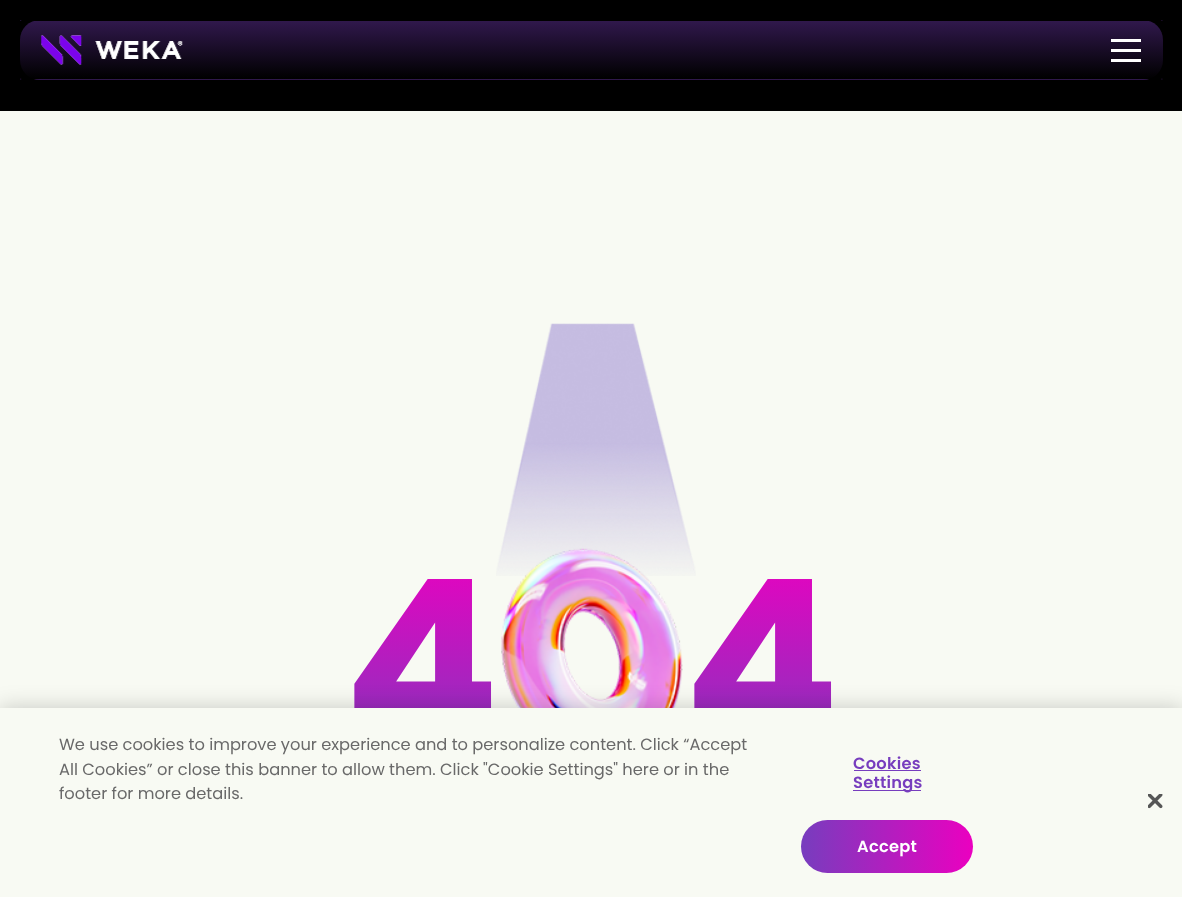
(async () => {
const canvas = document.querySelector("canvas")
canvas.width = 1182
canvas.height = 897
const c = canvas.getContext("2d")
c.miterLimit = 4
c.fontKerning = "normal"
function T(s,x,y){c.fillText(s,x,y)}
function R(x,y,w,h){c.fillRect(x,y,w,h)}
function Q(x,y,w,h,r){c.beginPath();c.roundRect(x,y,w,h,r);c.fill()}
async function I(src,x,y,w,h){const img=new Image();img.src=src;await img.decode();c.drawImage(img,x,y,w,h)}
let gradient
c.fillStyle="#000"
R(0,0,1182,897)
c.save()
c.beginPath()
c.roundRect(20,20,1143,60,20)
c.clip()
gradient = c.createLinearGradient(591,79,591,21)
gradient.addColorStop(0,"#000")
gradient.addColorStop(1,"#30184c")
c.fillStyle = gradient
R(20,21,1143,58)
gradient = c.createLinearGradient(591,136,591,79)
gradient.addColorStop(0,"#000")
gradient.addColorStop(1,"#30184c")
c.fillStyle = gradient
R(34,79,1115,1)
c.restore()
await I("1.png",20,20,1143,60)
await I("2.png",41,35,142,30)
c.fillStyle="#fff"
R(1111,39,30,3)
R(1111,49,30,3)
R(1111,59,30,3)
c.fillStyle="#f8faf3"
R(0,111,1182,597)
await I("3.png",496,323,200,253)
await I("4.png",501,548,182,160)
c.font="bold 232px Poppins"
gradient = c.createLinearGradient(421,549,421,781)
gradient.addColorStop(0,"#eb00c0")
gradient.addColorStop(1,"#773dbe")
c.fillStyle = gradient
T("4",343,746)
gradient = c.createLinearGradient(761,549,761,781)
gradient.addColorStop(0,"#eb00c0")
gradient.addColorStop(1,"#773dbe")
c.fillStyle = gradient
T("4",683,746)
c.fillStyle="#00000033"
c.filter="blur(11px)"
c.beginPath()
c.rect(0,708,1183,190)
c.fill()
c.filter="none"
c.fillStyle="#f8faf3"
R(0,708,1182,189)
c.font="16.25px Poppins"
c.fillStyle="#696969"
T("We use cookies to improve your experience and to personalize content. Click “Accept",59,750)
T("All Cookies” or close this banner to allow them. Click \"Cookie Settings\" here or in the",59,775)
T("footer for more details.",59,799)
c.letterSpacing="0.25px"
c.font="600 16.25px Poppins"
c.fillStyle="#773dbe"
T("Cookies",853,769)
R(854,770,67,1)
R(853,790,68,1)
T("Settings",853,788)
gradient = c.createLinearGradient(801,846,973,846)
gradient.addColorStop(0,"#773dbe")
gradient.addColorStop(1,"#eb00c0")
c.fillStyle = gradient
Q(801,820,172,53,26.5)
c.fillStyle="#fff"
T("Accept",857,852)
await I("5.png",1148,794,15,15)
})()
